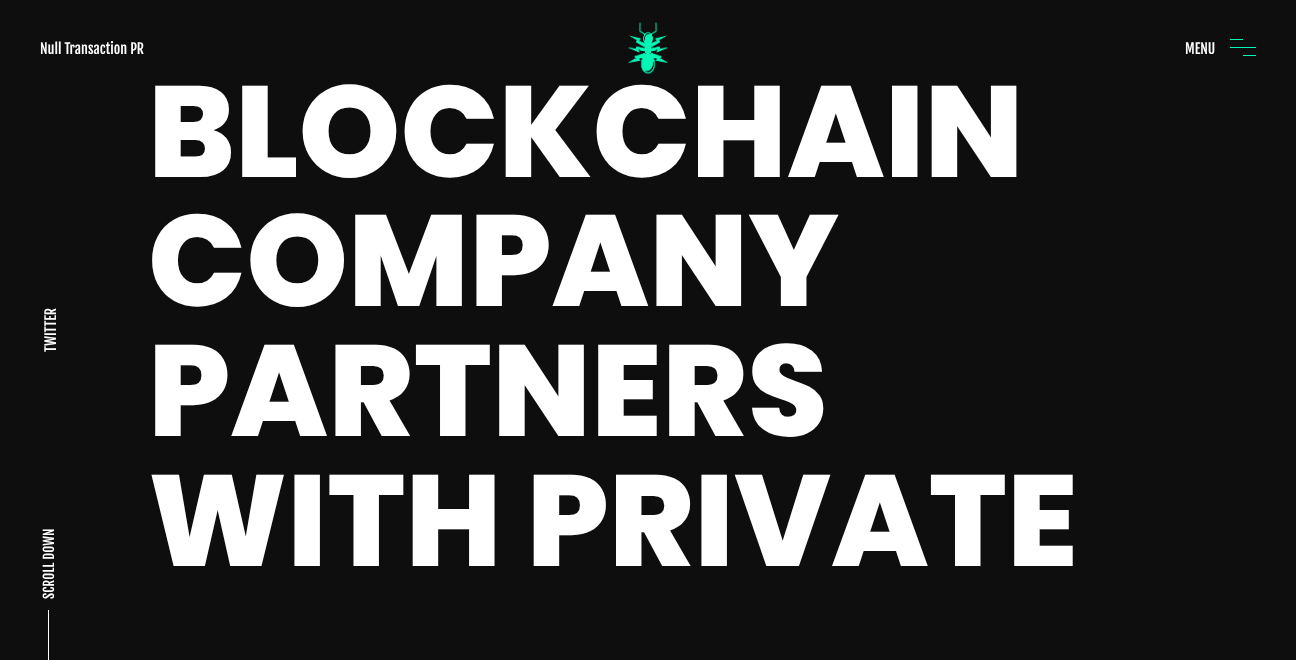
(async () => {
const canvas = document.querySelector("canvas")
canvas.width = 1296
canvas.height = 660
const c = canvas.getContext("2d")
c.miterLimit = 4
c.fontKerning = "normal"
function T(s,x,y){c.fillText(s,x,y)}
function R(x,y,w,h){c.fillRect(x,y,w,h)}
async function I(src,x,y,w,h){const img=new Image();img.src=src;await img.decode();c.drawImage(img,x,y,w,h)}
c.fillStyle="#0e0e0e"
R(0,0,1296,660)
c.font="14px Fjalla One"
c.fillStyle="#fff"
T("Null Transaction PR",40,54)
await I("1.png",627,22,42,53)
T("MENU",1185,54)
c.fillStyle="#01f7b6"
R(1230,39,13,1)
R(1230,47,26,1)
R(1243,55,13,1)
c.fillStyle="#fff"
c.save()
c.translate(56,352)
c.rotate(-90 * Math.PI / 180)
c.fillText("TWITTER",0,0)
c.restore()
c.font="800 129.5px Poppins"
T("BLOCKCHAIN",148,177)
T("COMPANY",148,306)
T("PARTNERS",148,436)
T("WITH PRIVATE",148,566)
c.font="13.5px Fjalla One"
c.save()
c.translate(54,599)
c.rotate(-90 * Math.PI / 180)
c.fillText("SCROLL DOWN",0,0)
c.restore()
R(48,610,1,50)
})()
